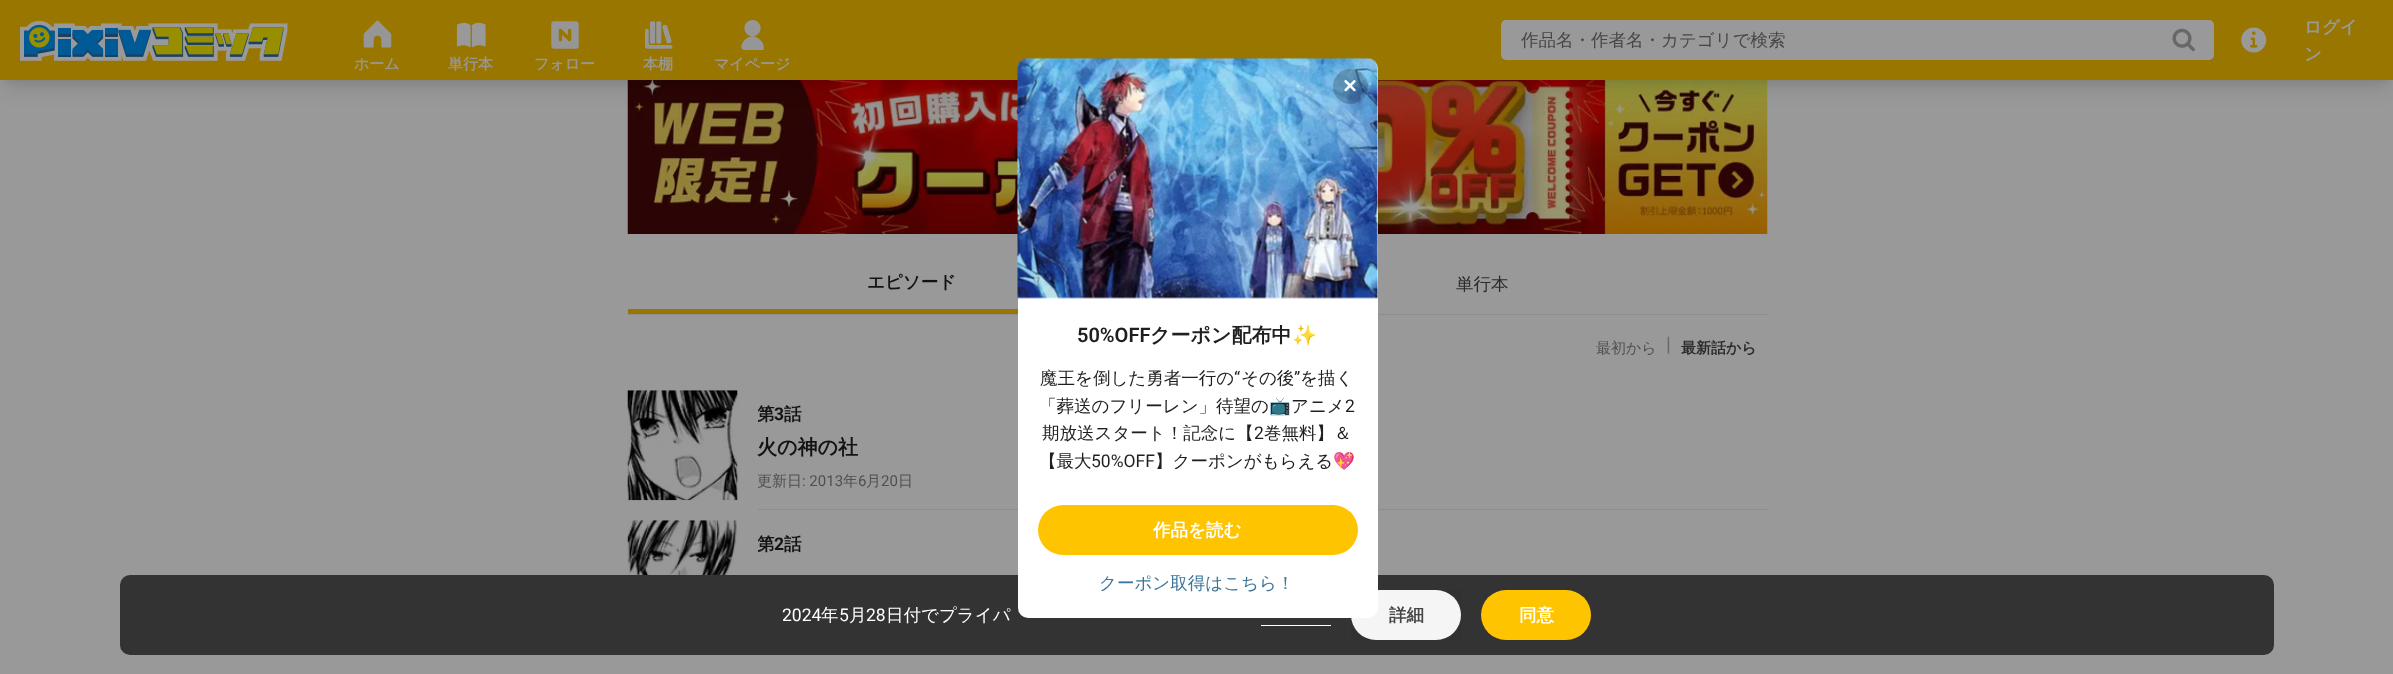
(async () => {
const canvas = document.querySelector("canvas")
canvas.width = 2393
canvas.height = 674
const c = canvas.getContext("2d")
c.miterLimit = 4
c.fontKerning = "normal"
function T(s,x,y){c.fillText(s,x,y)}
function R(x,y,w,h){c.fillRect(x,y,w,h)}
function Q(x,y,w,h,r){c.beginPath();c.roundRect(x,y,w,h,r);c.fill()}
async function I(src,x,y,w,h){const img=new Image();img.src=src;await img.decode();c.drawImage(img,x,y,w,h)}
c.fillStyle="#999"
R(0,0,2393,674)
await I("9.png",627,80,1141,154)
c.fillStyle="#0000001a"
c.filter="blur(4px)"
c.beginPath()
c.rect(5,10,2384,70)
c.fill()
c.filter="none"
c.filter="blur(9.5px)"
c.beginPath()
c.rect(4,16,2386,73)
c.fill()
c.filter="none"
c.fillStyle="#997600"
R(0,0,2393,80)
c.fillStyle="#999"
Q(1501,20,713,40,5)
c.font="500 17.5px WenQuanYi Zen Hei"
c.fillStyle="#464646"
T("作品名・作者名・カテゴリで検索",1521,46)
await I("1.png",2172,28,23,24)
await I("2.png",2241,27,26,26)
await I("3.png",20,20,268,41)
await I("4.png",363,20,29,28)
c.font="bold 15px WenQuanYi Zen Hei"
c.fillStyle="#99968d"
T("ホーム",354,69)
await I("5.png",456,22,30,26)
T("単行本",448,69)
await I("6.png",551,21,28,28)
T("フォロー",534,69)
await I("7.png",645,21,28,28)
T("本棚",643,69)
await I("8.png",741,20,23,30)
T("マイページ",714,69)
c.font="bold 17.5px WenQuanYi Zen Hei"
c.fillStyle="#999"
T("ログイ",2304,33)
T("ン",2304,60)
c.fillStyle="#8d8d8d"
R(628,314,1140,1)
c.fillStyle="#997600"
R(628,309,390,5)
c.fillStyle="#131313"
T("エピソード",867,288)
c.font="500 17.5px WenQuanYi Zen Hei"
c.fillStyle="#2b2b2b"
T("単行本",1456,290)
c.font="500 15px WenQuanYi Zen Hei"
c.fillStyle="#505050"
T("最初から",1596,353)
c.font="20px Roboto"
c.fillStyle="#686868"
T("|",1666,351)
c.font="bold 15px WenQuanYi Zen Hei"
c.fillStyle="#2b2b2b"
T("最新話から",1681,353)
await I("10.png",627,390,111,111)
c.save()
c.beginPath()
c.rect(758,400,1010,28)
c.clip()
c.font="bold 17.5px WenQuanYi Zen Hei"
c.fillStyle="#131313"
T("第",757,420)
c.restore()
c.font="bold 17.5px Roboto"
c.fillStyle="#131313"
T("3",774,420)
c.font="bold 17.5px WenQuanYi Zen Hei"
T("話",784,420)
c.font="bold 20px WenQuanYi Zen Hei"
T("火の神の社",757,454)
c.save()
c.beginPath()
c.rect(758,390,1010,120)
c.clip()
c.font="500 15px WenQuanYi Zen Hei"
c.fillStyle="#505050"
T("更新日",757,486)
c.restore()
c.font="15px Roboto"
c.fillStyle="#505050"
T(": 2013",802,486)
c.font="500 15px WenQuanYi Zen Hei"
T("年",843,486)
c.font="15px Roboto"
T("6",858,486)
c.font="500 15px WenQuanYi Zen Hei"
T("月",866,486)
c.font="15px Roboto"
T("20",881,486)
c.font="500 15px WenQuanYi Zen Hei"
T("日",898,486)
c.fillStyle="#8d8d8d"
R(758,509,1010,1)
await I("11.png",627,520,110,55)
c.save()
c.beginPath()
c.rect(758,530,1010,28)
c.clip()
c.font="bold 17.5px WenQuanYi Zen Hei"
c.fillStyle="#131313"
T("第",757,550)
c.restore()
c.font="bold 17.5px Roboto"
c.fillStyle="#131313"
T("2",774,550)
c.font="bold 17.5px WenQuanYi Zen Hei"
T("話",784,550)
c.fillStyle="#333"
Q(120,575,2154,80,10)
c.fillStyle="#fff"
Q(1351,590,110,50,25)
c.fillStyle="#0000000a"
R(1351,590,110,50)
c.fillStyle="#fff"
Q(1018,59,360,559,10)
await I("12.png",1017,57,361,242)
c.fillStyle="#00000033"
c.beginPath()
c.arc(1350.5,86.5,17.5,0,7)
c.fill()
await I("13.png",1344,80,12,12)
c.font="600 20px Roboto"
c.fillStyle="#1f1f1f"
T("50%OFF",1077,342)
c.font="bold 20px WenQuanYi Zen Hei"
T("クーポン配布中",1150,342)
c.font="20px Noto Color Emoji"
T("✨",1292,342)
c.font="500 17.5px WenQuanYi Zen Hei"
T("魔王を倒した勇者一行の",1040,384)
c.font="17.5px Roboto"
T("“",1234,384)
c.font="500 17.5px WenQuanYi Zen Hei"
T("その後",1241,384)
c.font="17.5px Roboto"
T("”",1294,384)
c.font="500 17.5px WenQuanYi Zen Hei"
T("を描く",1300,384)
T("「葬送のフリーレン」待望の",1039,412)
c.font="17.5px Noto Color Emoji"
T("📺",1269,412)
c.font="500 17.5px WenQuanYi Zen Hei"
T("アニメ",1291,412)
c.font="17.5px Roboto"
T("2",1345,412)
c.font="500 17.5px WenQuanYi Zen Hei"
T("期放送スタート！記念に【",1042,439)
c.font="17.5px Roboto"
T("2",1254,439)
c.font="500 17.5px WenQuanYi Zen Hei"
T("巻無料】＆",1264,439)
T("【最大",1039,467)
c.font="17.5px Roboto"
T("50%OFF",1091,467)
c.font="500 17.5px WenQuanYi Zen Hei"
T("】クーポンがもらえる",1155,467)
c.font="17.5px Noto Color Emoji"
T("💖",1333,467)
c.fillStyle="#ffc400"
Q(1038,505,320,50,25)
c.font="bold 17.5px WenQuanYi Zen Hei"
c.fillStyle="#fff"
T("作品を読む",1153,536)
c.font="500 17.5px WenQuanYi Zen Hei"
c.fillStyle="#3d7699"
T("クーポン取得はこちら！",1099,589)
c.font="17.5px Roboto"
c.fillStyle="#fff"
T("2024",782,621)
c.font="500 17.5px WenQuanYi Zen Hei"
T("年",821,621)
c.font="17.5px Roboto"
T("5",839,621)
c.font="500 17.5px WenQuanYi Zen Hei"
T("月",849,621)
c.font="17.5px Roboto"
T("28",866,621)
c.font="500 17.5px WenQuanYi Zen Hei"
T("日付でプライパ",886,621)
R(1261,625,70,1)
c.font="bold 17.5px WenQuanYi Zen Hei"
c.fillStyle="#464646"
T("詳細",1389,621)
c.fillStyle="#ffc400"
Q(1481,590,110,50,25)
c.fillStyle="#fff"
T("同意",1519,621)
})()
